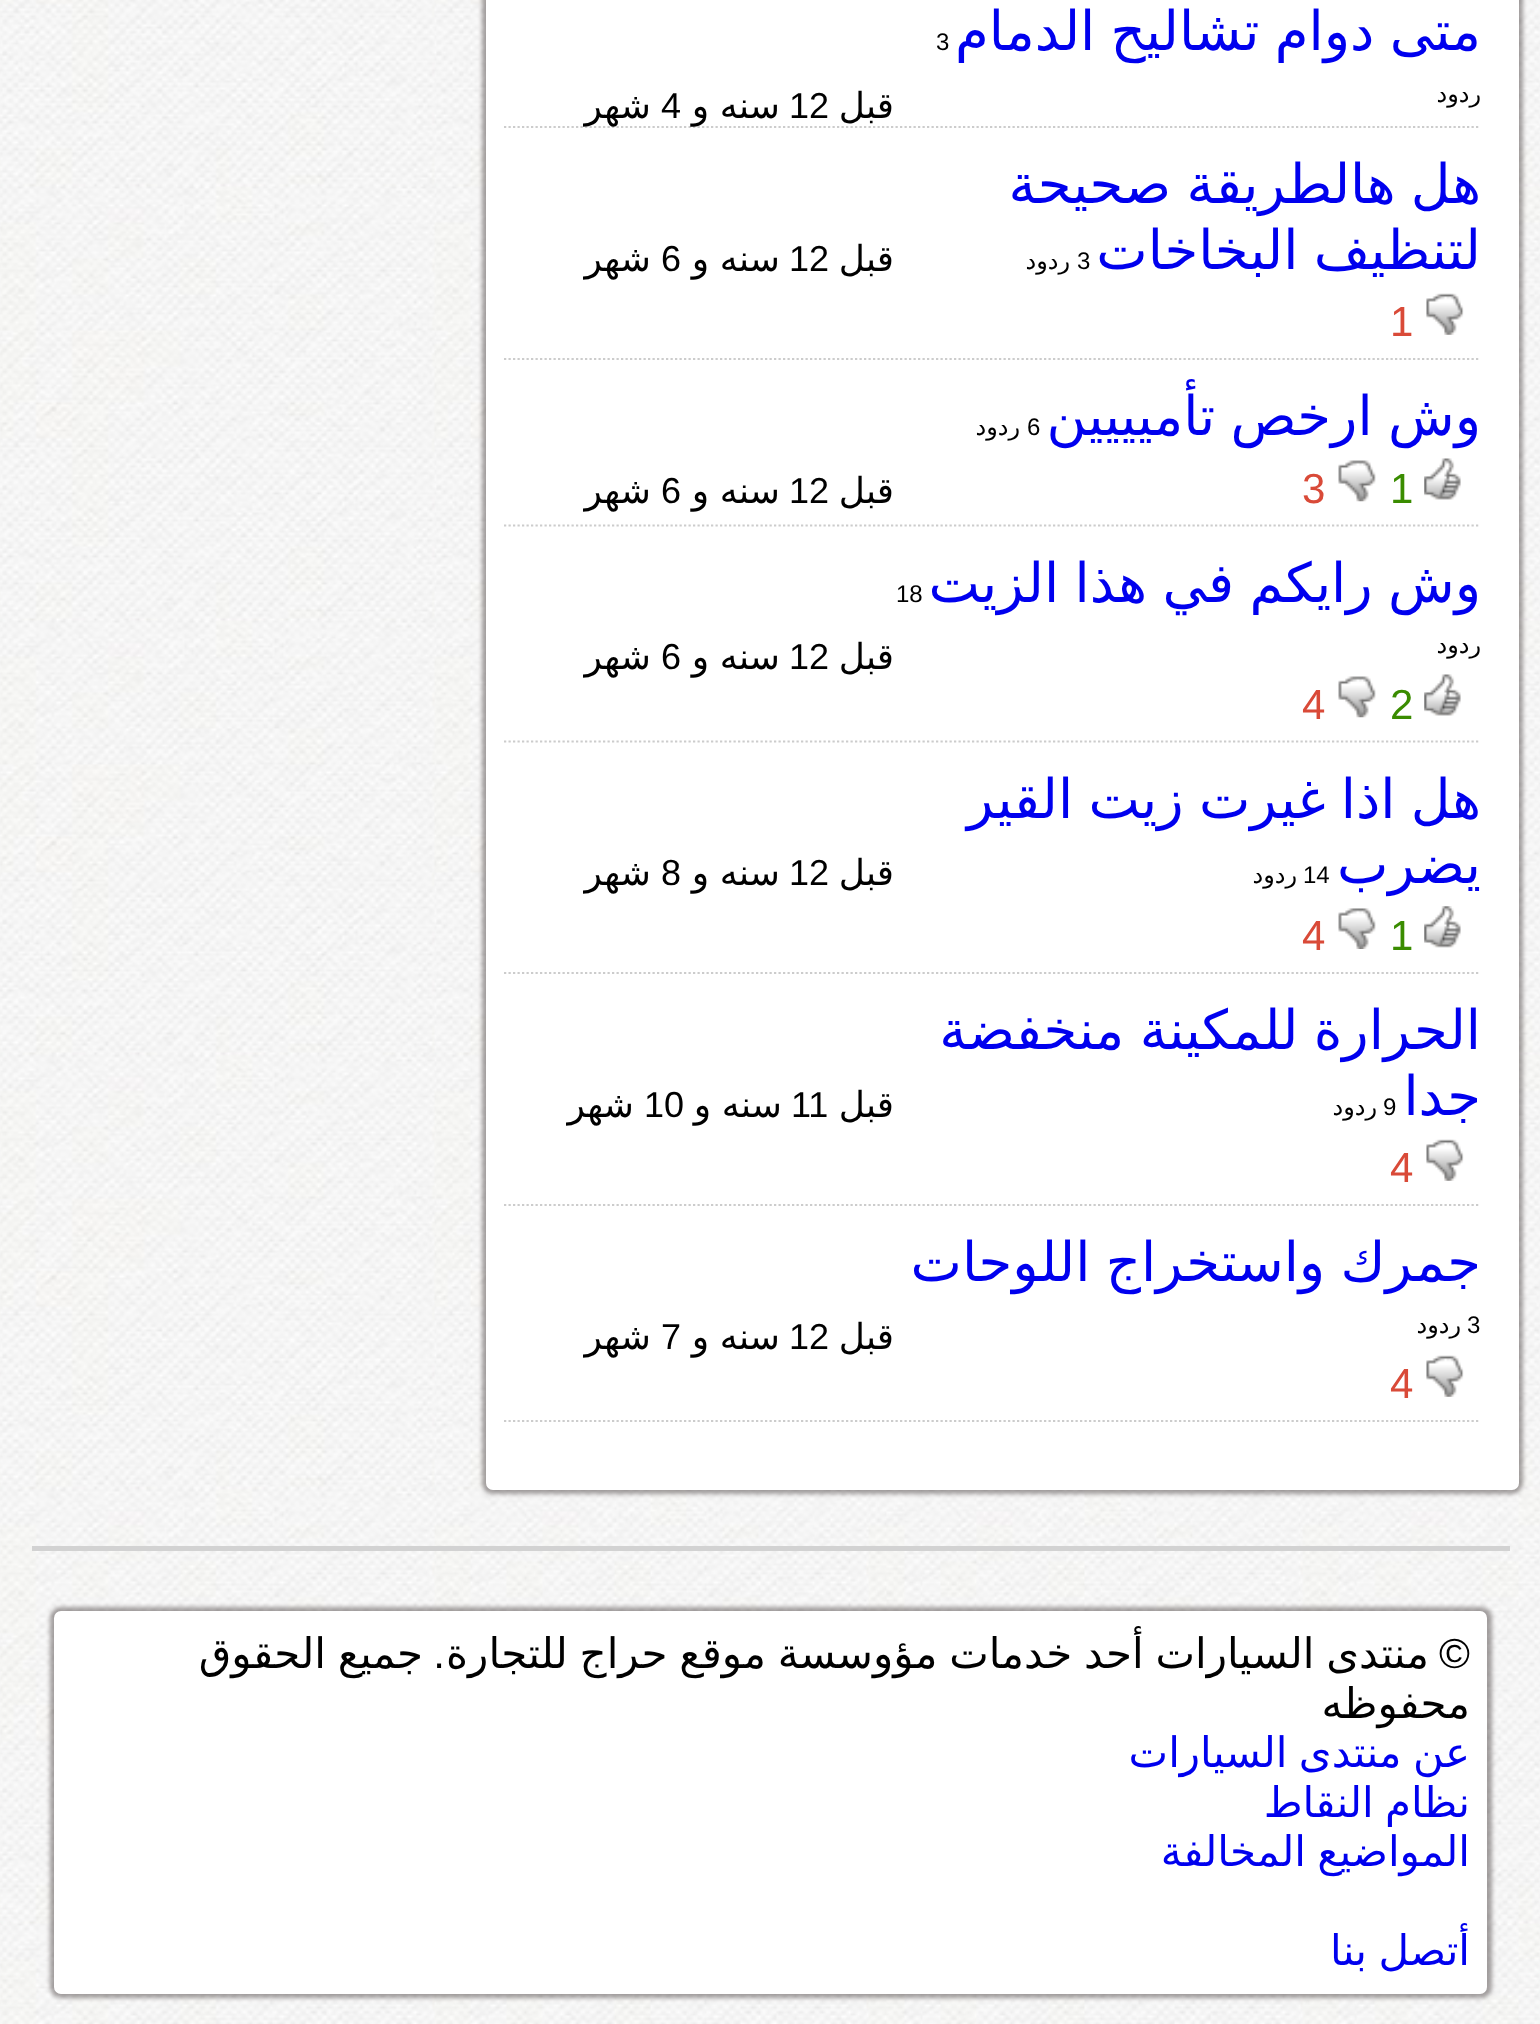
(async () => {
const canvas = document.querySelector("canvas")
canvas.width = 1540
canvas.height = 2024
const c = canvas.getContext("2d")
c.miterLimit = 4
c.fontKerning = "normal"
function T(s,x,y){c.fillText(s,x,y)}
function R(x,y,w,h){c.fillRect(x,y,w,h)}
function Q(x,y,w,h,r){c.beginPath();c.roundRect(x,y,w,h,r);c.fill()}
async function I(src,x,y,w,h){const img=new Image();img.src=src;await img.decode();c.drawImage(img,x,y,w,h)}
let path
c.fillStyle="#fff"
R(0,0,1540,2024)
await I("1.png",0,0,1540,2024)
c.fillStyle="#22191966"
c.filter="blur(2px)"
c.beginPath()
c.roundRect(482,-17,1041,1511,11)
c.fill()
c.filter="none"
c.fillStyle="#fff"
Q(486,-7,1033,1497,7)
path = new Path2D("M504 127h976.5")
c.strokeStyle="#ccc"
c.lineWidth=2.2
c.setLineDash([2.25,2.25])
c.stroke(path)
c.wordSpacing="-2px"
c.direction="rtl"
c.font="54.6px DejaVu Sans"
c.fillStyle="#00e"
T("متى دوام تشاليح الدمام",1481,50)
c.wordSpacing="0px"
c.direction="ltr"
c.font="24px Liberation Sans"
c.fillStyle="#000"
T("3",936,50)
c.direction="rtl"
c.font="24px DejaVu Sans"
T("ردود",1481,102)
c.font="36px DejaVu Sans"
T("قبل",894,118)
c.direction="ltr"
c.font="36px Liberation Sans"
T("12",789,118)
c.wordSpacing="-1px"
c.direction="rtl"
c.font="36px DejaVu Sans"
T("سنه و",780,118)
c.wordSpacing="0px"
c.direction="ltr"
c.font="36px Liberation Sans"
T("4",661,118)
c.direction="rtl"
c.font="36px DejaVu Sans"
T("شهر",651,118)
path = new Path2D("M504 359h976.5")
c.stroke(path)
c.wordSpacing="-2px"
c.font="54.6px DejaVu Sans"
c.fillStyle="#00e"
T("هل هالطريقة صحيحة",1481,203)
T("لتنظيف البخاخات",1481,269)
c.wordSpacing="0px"
c.direction="ltr"
c.font="24px Liberation Sans"
c.fillStyle="#000"
T("3",1077,269)
c.direction="rtl"
c.font="24px DejaVu Sans"
T("ردود",1070,269)
c.strokeStyle="#fff"
c.lineWidth=5
c.setLineDash([])
c.strokeRect(1377.5,283.5,101,72)
await I("2.png",1426,293,38,42)
c.direction="ltr"
c.font="42px Liberation Sans"
c.fillStyle="#d94a38"
T("1",1390,336)
c.direction="rtl"
c.font="36px DejaVu Sans"
c.fillStyle="#000"
T("قبل",894,271)
c.direction="ltr"
c.font="36px Liberation Sans"
T("12",789,271)
c.wordSpacing="-1px"
c.direction="rtl"
c.font="36px DejaVu Sans"
T("سنه و",780,271)
c.wordSpacing="0px"
c.direction="ltr"
c.font="36px Liberation Sans"
T("6",661,271)
c.direction="rtl"
c.font="36px DejaVu Sans"
T("شهر",651,271)
path = new Path2D("M504 525.5h976.5")
c.strokeStyle="#ccc"
c.lineWidth=2.2
c.setLineDash([2.25,2.25])
c.stroke(path)
c.wordSpacing="-2px"
c.font="54.6px DejaVu Sans"
c.fillStyle="#00e"
T("وش ارخص تأميييين",1481,435)
c.wordSpacing="0px"
c.direction="ltr"
c.font="24px Liberation Sans"
c.fillStyle="#000"
T("6",1027,435)
c.direction="rtl"
c.font="24px DejaVu Sans"
T("ردود",1020,435)
await I("3.png",1424,458,37,42)
c.direction="ltr"
c.font="42px Liberation Sans"
c.fillStyle="#3a8c00"
T("1",1390,503)
await I("4.png",1338,460,38,42)
c.fillStyle="#d94a38"
T("3",1302,503)
c.direction="rtl"
c.font="36px DejaVu Sans"
c.fillStyle="#000"
T("قبل",894,503)
c.direction="ltr"
c.font="36px Liberation Sans"
T("12",789,503)
c.wordSpacing="-1px"
c.direction="rtl"
c.font="36px DejaVu Sans"
T("سنه و",780,503)
c.wordSpacing="0px"
c.direction="ltr"
c.font="36px Liberation Sans"
T("6",661,503)
c.direction="rtl"
c.font="36px DejaVu Sans"
T("شهر",651,503)
path = new Path2D("M504 741.5h976.5")
c.stroke(path)
c.wordSpacing="-2px"
c.font="54.6px DejaVu Sans"
c.fillStyle="#00e"
T("وش رايكم في هذا الزيت",1481,602)
c.wordSpacing="0px"
c.direction="ltr"
c.font="24px Liberation Sans"
c.fillStyle="#000"
T("18",896,602)
c.direction="rtl"
c.font="24px DejaVu Sans"
T("ردود",1481,653)
await I("3.png",1424,674,37,42)
c.direction="ltr"
c.font="42px Liberation Sans"
c.fillStyle="#3a8c00"
T("2",1390,719)
await I("4.png",1338,676,38,42)
c.fillStyle="#d94a38"
T("4",1302,719)
c.direction="rtl"
c.font="36px DejaVu Sans"
c.fillStyle="#000"
T("قبل",894,669)
c.direction="ltr"
c.font="36px Liberation Sans"
T("12",789,669)
c.wordSpacing="-1px"
c.direction="rtl"
c.font="36px DejaVu Sans"
T("سنه و",780,669)
c.wordSpacing="0px"
c.direction="ltr"
c.font="36px Liberation Sans"
T("6",661,669)
c.direction="rtl"
c.font="36px DejaVu Sans"
T("شهر",651,669)
path = new Path2D("M504 973h976.5")
c.stroke(path)
c.wordSpacing="-2px"
c.font="54.6px DejaVu Sans"
c.fillStyle="#00e"
T("هل اذا غيرت زيت القير",1481,818)
c.strokeStyle="#fff"
c.lineWidth=5
c.setLineDash([])
c.strokeRect(1289.5,898.5,189,71)
c.wordSpacing="0px"
T("يضرب",1481,883)
c.direction="ltr"
c.font="24px Liberation Sans"
c.fillStyle="#000"
T("14",1303,883)
c.direction="rtl"
c.font="24px DejaVu Sans"
T("ردود",1297,883)
await I("5.png",1424,906,37,42)
c.direction="ltr"
c.font="42px Liberation Sans"
c.fillStyle="#3a8c00"
T("1",1390,950)
await I("6.png",1338,908,38,41)
c.fillStyle="#d94a38"
T("4",1302,950)
c.direction="rtl"
c.font="36px DejaVu Sans"
c.fillStyle="#000"
T("قبل",894,885)
c.direction="ltr"
c.font="36px Liberation Sans"
T("12",789,885)
c.wordSpacing="-1px"
c.direction="rtl"
c.font="36px DejaVu Sans"
T("سنه و",780,885)
c.wordSpacing="0px"
c.direction="ltr"
c.font="36px Liberation Sans"
T("8",661,885)
c.direction="rtl"
c.font="36px DejaVu Sans"
T("شهر",651,885)
path = new Path2D("M504 1205h976.5")
c.strokeStyle="#ccc"
c.lineWidth=2.2
c.setLineDash([2.25,2.25])
c.stroke(path)
c.wordSpacing="-2px"
c.font="54.6px DejaVu Sans"
c.fillStyle="#00e"
T("الحرارة للمكينة منخفضة",1481,1049)
c.wordSpacing="0px"
T("جدا",1481,1115)
c.direction="ltr"
c.font="24px Liberation Sans"
c.fillStyle="#000"
T("9",1383,1115)
c.direction="rtl"
c.font="24px DejaVu Sans"
T("ردود",1377,1115)
c.strokeStyle="#fff"
c.lineWidth=5
c.setLineDash([])
c.strokeRect(1377.5,1129.5,101,72)
await I("2.png",1426,1139,38,42)
c.direction="ltr"
c.font="42px Liberation Sans"
c.fillStyle="#d94a38"
T("4",1390,1182)
c.direction="rtl"
c.font="36px DejaVu Sans"
c.fillStyle="#000"
T("قبل",894,1117)
c.direction="ltr"
c.font="36px Liberation Sans"
T("11",791,1117)
c.wordSpacing="-1px"
c.direction="rtl"
c.font="36px DejaVu Sans"
T("سنه و",782,1117)
c.wordSpacing="0px"
c.direction="ltr"
c.font="36px Liberation Sans"
T("10",644,1117)
c.direction="rtl"
c.font="36px DejaVu Sans"
T("شهر",634,1117)
path = new Path2D("M504 1421h976.5")
c.strokeStyle="#ccc"
c.lineWidth=2.2
c.setLineDash([2.25,2.25])
c.stroke(path)
c.wordSpacing="-2px"
c.font="54.6px DejaVu Sans"
c.fillStyle="#00e"
T("جمرك واستخراج اللوحات",1481,1281)
c.wordSpacing="0px"
c.direction="ltr"
c.font="24px Liberation Sans"
c.fillStyle="#000"
T("3",1467,1333)
c.direction="rtl"
c.font="24px DejaVu Sans"
T("ردود",1461,1333)
c.strokeStyle="#fff"
c.lineWidth=5
c.setLineDash([])
c.strokeRect(1377.5,1345.5,101,72)
await I("2.png",1426,1355,38,42)
c.direction="ltr"
c.font="42px Liberation Sans"
c.fillStyle="#d94a38"
T("4",1390,1398)
c.direction="rtl"
c.font="36px DejaVu Sans"
c.fillStyle="#000"
T("قبل",894,1349)
c.direction="ltr"
c.font="36px Liberation Sans"
T("12",789,1349)
c.wordSpacing="-1px"
c.direction="rtl"
c.font="36px DejaVu Sans"
T("سنه و",780,1349)
c.wordSpacing="0px"
c.direction="ltr"
c.font="36px Liberation Sans"
T("7",661,1349)
c.direction="rtl"
c.font="36px DejaVu Sans"
T("شهر",651,1349)
c.fillStyle="#d2d2d2"
R(32,1546,1478,5)
c.fillStyle="#22191966"
c.filter="blur(2px)"
c.beginPath()
c.roundRect(50,1607,1442,391,11)
c.fill()
c.filter="none"
c.fillStyle="#fff"
Q(54,1611,1433,383,7)
c.font="42px Liberation Sans"
c.fillStyle="#000"
T("©",1470,1668)
c.wordSpacing="-1.5px"
c.font="42px DejaVu Sans"
T("منتدى السيارات أحد خدمات مؤوسسة موقع حراج للتجارة",1429,1668)
c.wordSpacing="0px"
c.font="42px Liberation Sans"
T(".",445,1668)
c.wordSpacing="-1.5px"
c.font="42px DejaVu Sans"
T("جميع الحقوق",423,1668)
c.wordSpacing="0px"
T("محفوظه",1470,1718)
c.wordSpacing="-2px"
c.fillStyle="#00e"
T("عن منتدى السيارات",1470,1767)
T("نظام النقاط",1470,1817)
T("المواضيع المخالفة",1470,1866)
T("أتصل بنا",1470,1965)
})()
